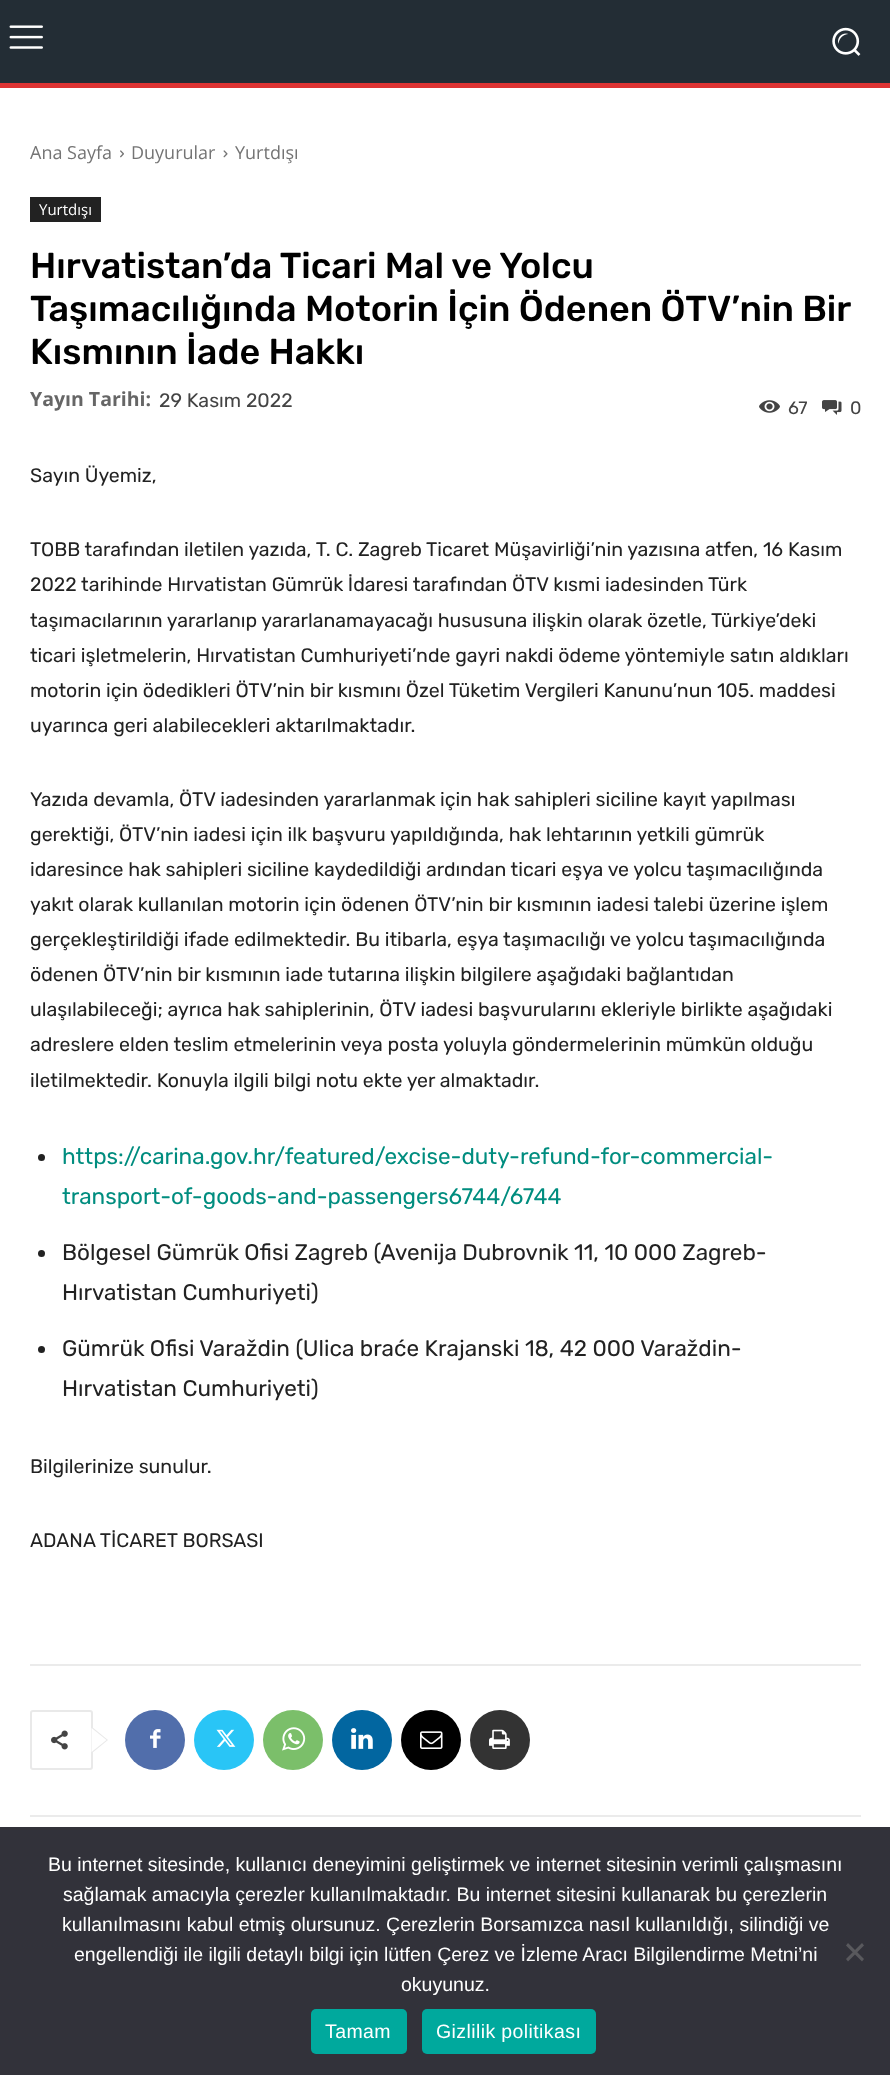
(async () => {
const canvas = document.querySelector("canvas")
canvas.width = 890
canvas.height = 2075
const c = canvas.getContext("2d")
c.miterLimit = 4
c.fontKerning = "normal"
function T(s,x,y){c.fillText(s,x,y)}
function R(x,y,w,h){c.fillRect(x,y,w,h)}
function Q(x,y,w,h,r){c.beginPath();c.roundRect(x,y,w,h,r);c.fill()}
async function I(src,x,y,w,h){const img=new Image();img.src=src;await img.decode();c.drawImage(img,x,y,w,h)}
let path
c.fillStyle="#fff"
R(0,0,890,2075)
c.fillStyle="#232d35"
R(0,0,890,83)
await I("1.png",9,25,34,24)
await I("2.png",832,27,29,29)
c.fillStyle="#d33"
R(0,83,890,5)
c.font="18px Open Sans"
c.fillStyle="#747474"
T("Ana Sayfa",30,159)
await I("3.png",120,150,4,8)
T("Duyurular",131,159)
await I("4.png",223,150,5,8)
T("Yurtdışı",235,159)
c.fillStyle="#222"
R(30,197,71,25)
c.font="15px Open Sans"
c.fillStyle="#fff"
T("Yurtdışı",39,215)
c.font="500 36px Rubik"
c.fillStyle="#000"
T("Hırvatistan’da Ticari Mal ve Yolcu",30,278)
T("Taşımacılığında Motorin İçin Ödenen ÖTV’nin Bir",30,321)
T("Kısmının İade Hakkı",30,364)
c.font="bold 19.5px Open Sans"
c.fillStyle="#666"
T("Yayın Tarihi:",30,406)
c.font="19.5px Rubik"
c.fillStyle="#444"
T("29 Kasım 2022",159,407)
await I("5.png",759,400,21,13)
c.font="18px Rubik"
T("67",788,414)
await I("6.png",822,400,20,15)
T("0",850,414)
c.font="19.5px Rubik"
c.fillStyle="#222"
T("Sayın Üyemiz,",30,482)
T("TOBB tarafından iletilen yazıda, T. C. Zagreb Ticaret Müşavirliği’nin yazısına atfen, 16 Kasım",30,556)
T("2022 tarihinde Hırvatistan Gümrük İdaresi tarafından ÖTV kısmi iadesinden Türk",30,591)
T("taşımacılarının yararlanıp yararlanamayacağı hususuna ilişkin olarak özetle, Türkiye’deki",30,627)
T("ticari işletmelerin, Hırvatistan Cumhuriyeti’nde gayri nakdi ödeme yöntemiyle satın aldıkları",30,662)
T("motorin için ödedikleri ÖTV’nin bir kısmını Özel Tüketim Vergileri Kanunu’nun 105. maddesi",30,697)
T("uyarınca geri alabilecekleri aktarılmaktadır.",30,732)
T("Yazıda devamla, ÖTV iadesinden yararlanmak için hak sahipleri siciline kayıt yapılması",30,806)
T("gerektiği, ÖTV’nin iadesi için ilk başvuru yapıldığında, hak lehtarının yetkili gümrük",30,841)
T("idaresince hak sahipleri siciline kaydedildiği ardından ticari eşya ve yolcu taşımacılığında",30,876)
T("yakıt olarak kullanılan motorin için ödenen ÖTV’nin bir kısmının iadesi talebi üzerine işlem",30,911)
T("gerçekleştirildiği ifade edilmektedir. Bu itibarla, eşya taşımacılığı ve yolcu taşımacılığında",30,946)
T("ödenen ÖTV’nin bir kısmının iade tutarına ilişkin bilgilere aşağıdaki bağlantıdan",30,981)
T("ulaşılabileceği; ayrıca hak sahiplerinin, ÖTV iadesi başvurularını ekleriyle birlikte aşağıdaki",30,1016)
T("adreslere elden teslim etmelerinin veya posta yoluyla göndermelerinin mümkün olduğu",30,1051)
T("iletilmektedir. Konuyla ilgili bilgi notu ekte yer almaktadır.",30,1087)
c.beginPath()
c.arc(41.5,1157.5,3.5,0,7)
c.fill()
c.font="22.5px Rubik"
c.fillStyle="#008d7f"
T("https://carina.gov.hr/featured/excise-duty-refund-for-commercial-",62,1164)
T("transport-of-goods-and-passengers6744/6744",62,1204)
c.fillStyle="#222"
c.beginPath()
c.arc(41.5,1253.5,3.5,0,7)
c.fill()
T("Bölgesel Gümrük Ofisi Zagreb (Avenija Dubrovnik 11, 10 000 Zagreb-",62,1260)
T("Hırvatistan Cumhuriyeti)",62,1300)
c.beginPath()
c.arc(41.5,1349.5,3.5,0,7)
c.fill()
T("Gümrük Ofisi Varaždin (Ulica braće Krajanski 18, 42 000 Varaždin-",62,1356)
T("Hırvatistan Cumhuriyeti)",62,1396)
c.font="19.5px Rubik"
T("Bilgilerinize sunulur.",30,1473)
T("ADANA TİCARET BORSASI",30,1547)
c.fillStyle="#ebebeb"
R(30,1664,831,2)
c.beginPath()
c.roundRect(31,1711,61,58,2)
c.strokeStyle="#e9e9e9"
c.lineWidth=2
c.stroke()
c.fillStyle="#e9e9e9"
path = new Path2D("M91.5 1753.5v-27l16.5 13.5z")
c.fill(path)
await I("7.png",51,1730,17,20)
c.fillStyle="#fff"
path = new Path2D("M91.5 1752v-24l15 12z")
c.fill(path)
c.fillStyle="#516eab"
c.beginPath()
c.arc(155,1740,30,0,7)
c.fill()
await I("8.png",150,1729,11,19)
c.fillStyle="#29c5f6"
c.beginPath()
c.arc(224,1740,30,0,7)
c.fill()
await I("9.png",216,1729,20,18)
c.fillStyle="#7bbf6a"
c.beginPath()
c.arc(293,1740,30,0,7)
c.fill()
await I("10.png",282,1727,24,24)
c.fillStyle="#0266a0"
c.beginPath()
c.arc(362,1740,30,0,7)
c.fill()
await I("11.png",351,1728,22,21)
c.fillStyle="#000"
c.beginPath()
c.arc(431,1740,30,0,7)
c.fill()
await I("12.png",420,1731,23,18)
c.fillStyle="#333"
c.beginPath()
c.arc(500,1740,30,0,7)
c.fill()
await I("13.png",489,1729,21,20)
c.fillStyle="#ebebeb"
R(30,1815,831,2)
c.fillStyle="#32323a"
R(0,1827,890,248)
c.font="19.5px Liberation Sans"
c.fillStyle="#fff"
T("Bu internet sitesinde, kullanıcı deneyimini geliştirmek ve internet sitesinin verimli çalışmasını",48,1871)
T("sağlamak amacıyla çerezler kullanılmaktadır. Bu internet sitesini kullanarak bu çerezlerin",63,1901)
T("kullanılmasını kabul etmiş olursunuz. Çerezlerin Borsamızca nasıl kullanıldığı, silindiği ve",62,1931)
T("engellendiği ile ilgili detaylı bilgi için lütfen Çerez ve İzleme Aracı Bilgilendirme Metni’ni",74,1961)
T("okuyunuz.",401,1991)
c.fillStyle="#59595d"
path = new Path2D("M862 1943l2 2.5l-16 16l-2-2.5z")
c.fill(path)
path = new Path2D("M846 1945.5l2-2.5l16 16l-2 2.5z")
c.fill(path)
c.fillStyle="#00a99d"
Q(311,2009,96,45,5)
c.letterSpacing="0.4px"
c.fillStyle="#fff"
T("Tamam",325,2038)
c.fillStyle="#00a99d"
Q(422,2009,174,45,5)
c.fillStyle="#fff"
T("Gizlilik politikası",436,2038)
})()
